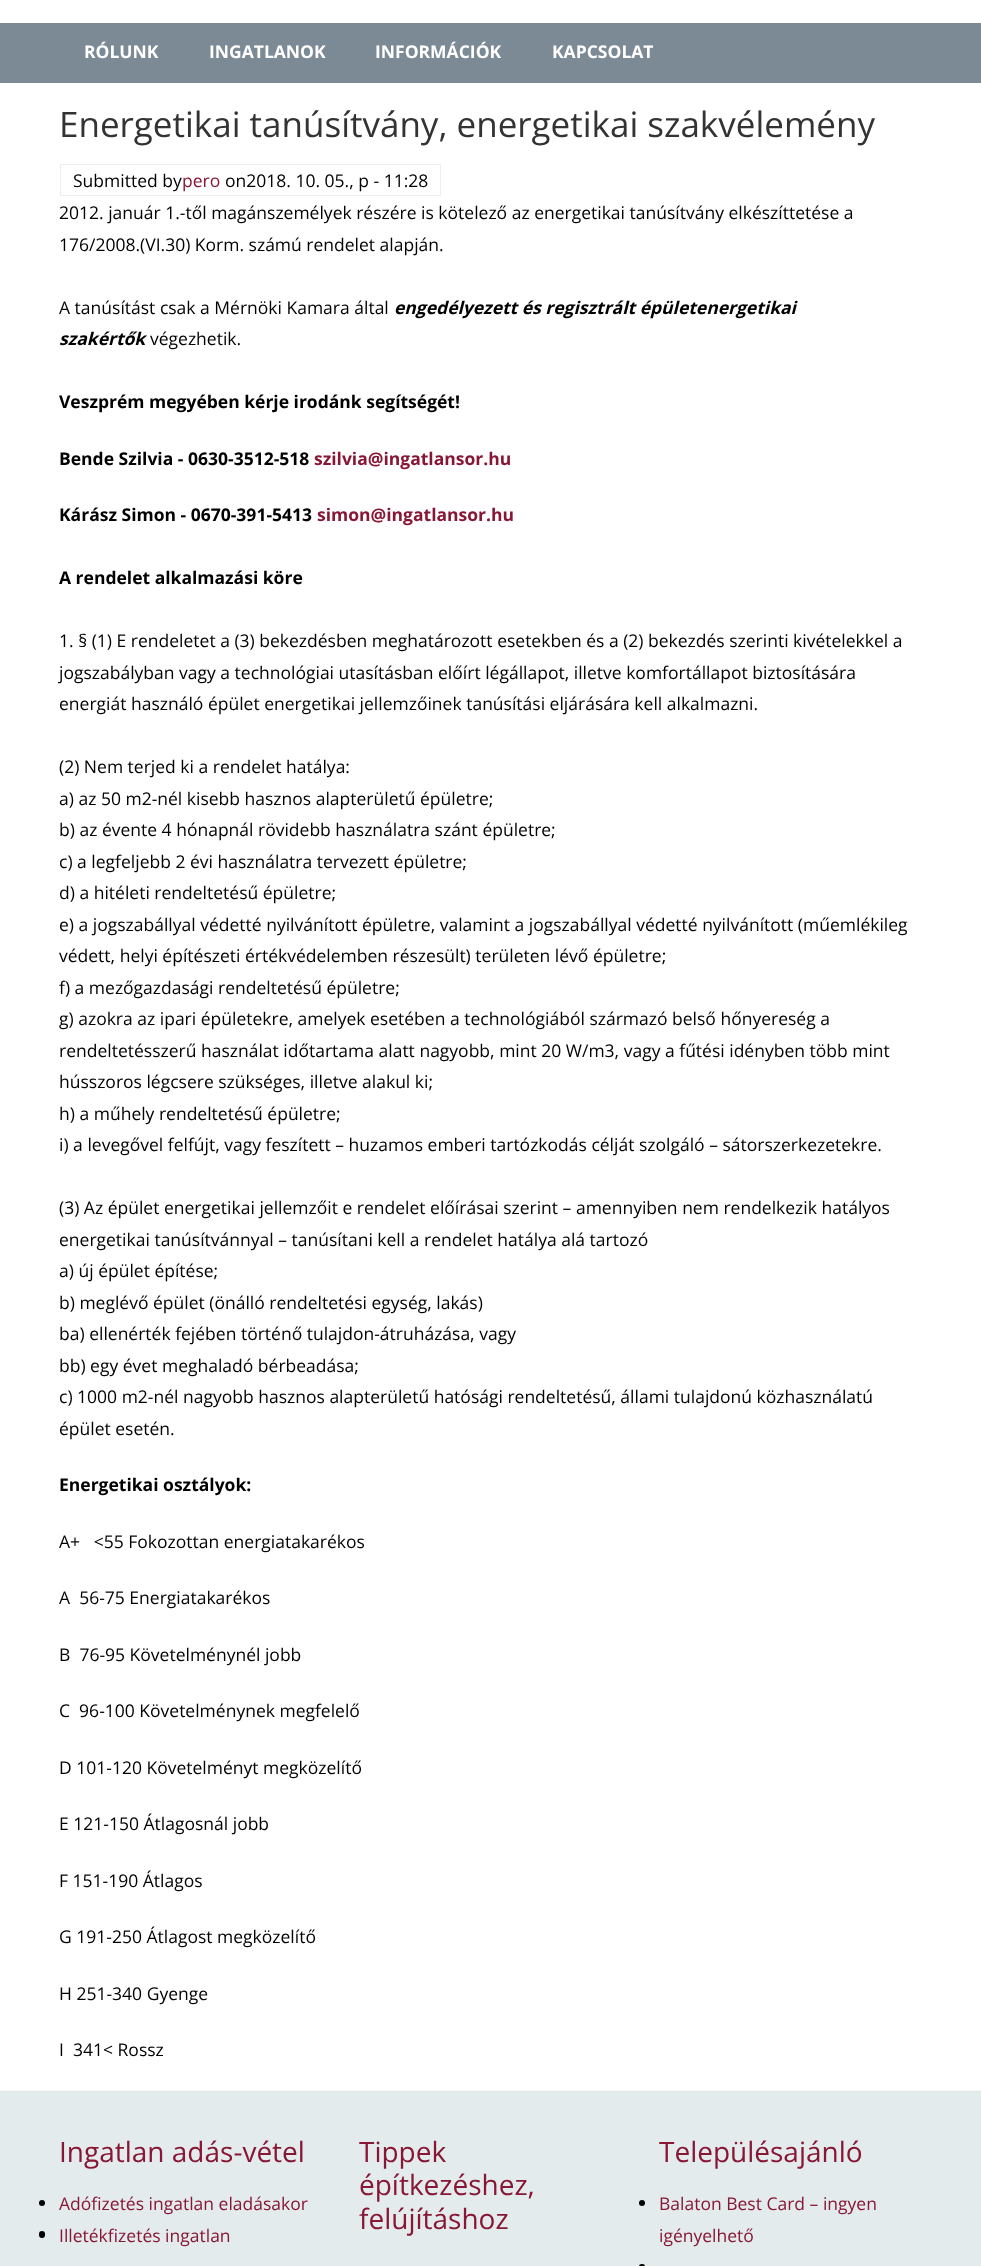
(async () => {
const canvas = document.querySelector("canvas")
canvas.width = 981
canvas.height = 2266
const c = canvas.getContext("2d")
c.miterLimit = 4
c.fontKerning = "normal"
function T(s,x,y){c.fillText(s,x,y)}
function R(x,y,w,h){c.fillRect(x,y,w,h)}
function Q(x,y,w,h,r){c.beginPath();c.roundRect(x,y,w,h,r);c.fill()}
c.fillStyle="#fff"
R(0,0,981,2266)
c.fillStyle="#7c8a96"
R(0,23,981,60)
c.font="bold 17.5px Open Sans"
c.fillStyle="#fff"
T("RÓLUNK",84,58)
T("INGATLANOK",209,58)
T("INFORMÁCIÓK",375,58)
T("KAPCSOLAT",552,58)
c.font="35px Open Sans"
c.fillStyle="#333"
T("Energetikai tanúsítvány, energetikai szakvélemény",59,137)
c.strokeStyle="#eee"
c.strokeRect(60.5,164.5,380,31)
c.font="17.5px Open Sans"
c.fillStyle="#000"
T("Submitted by",73,187)
c.fillStyle="#881635"
T("pero",182,187)
c.fillStyle="#000"
T("on2018. 10. 05., p - 11:28",225,187)
T("2012. január 1.-től magánszemélyek részére is kötelező az energetikai tanúsítvány elkészíttetése a",59,219)
T("176/2008.(VI.30) Korm. számú rendelet alapján.",59,251)
T("A tanúsítást csak a Mérnöki Kamara által",59,314)
c.font="italic bold 17.5px Open Sans"
T("engedélyezett és regisztrált épületenergetikai",394,314)
T("szakértők",59,345)
c.font="17.5px Open Sans"
T("végezhetik.",150,345)
c.font="bold 17.5px Open Sans"
T("Veszprém megyében kérje irodánk segítségét!",59,408)
T("Bende Szilvia - 0630-3512-518",59,465)
c.fillStyle="#881635"
T("szilvia@ingatlansor.hu",314,465)
c.fillStyle="#000"
T("Kárász Simon - 0670-391-5413",59,521)
c.fillStyle="#881635"
T("simon@ingatlansor.hu",317,521)
c.fillStyle="#000"
T("A rendelet alkalmazási köre",59,584)
c.font="17.5px Open Sans"
T("1. § (1) E rendeletet a (3) bekezdésben meghatározott esetekben és a (2) bekezdés szerinti kivételekkel a",59,647)
T("jogszabályban vagy a technológiai utasításban előírt légállapot, illetve komfortállapot biztosítására",59,679)
T("energiát használó épület energetikai jellemzőinek tanúsítási eljárására kell alkalmazni.",59,710)
T("(2) Nem terjed ki a rendelet hatálya:",59,773)
T("a) az 50 m2-nél kisebb hasznos alapterületű épületre;",59,805)
T("b) az évente 4 hónapnál rövidebb használatra szánt épületre;",59,836)
T("c) a legfeljebb 2 évi használatra tervezett épületre;",59,868)
T("d) a hitéleti rendeltetésű épületre;",59,899)
T("e) a jogszabállyal védetté nyilvánított épületre, valamint a jogszabállyal védetté nyilvánított (műemlékileg",59,931)
T("védett, helyi építészeti értékvédelemben részesült) területen lévő épületre;",59,962)
T("f) a mezőgazdasági rendeltetésű épületre;",59,994)
T("g) azokra az ipari épületekre, amelyek esetében a technológiából származó belső hőnyereség a",59,1025)
T("rendeltetésszerű használat időtartama alatt nagyobb, mint 20 W/m3, vagy a fűtési idényben több mint",59,1057)
T("hússzoros légcsere szükséges, illetve alakul ki;",59,1088)
T("h) a műhely rendeltetésű épületre;",59,1120)
T("i) a levegővel felfújt, vagy feszített – huzamos emberi tartózkodás célját szolgáló – sátorszerkezetekre.",59,1151)
T("(3) Az épület energetikai jellemzőit e rendelet előírásai szerint – amennyiben nem rendelkezik hatályos",59,1214)
T("energetikai tanúsítvánnyal – tanúsítani kell a rendelet hatálya alá tartozó",59,1246)
T("a) új épület építése;",59,1277)
T("b) meglévő épület (önálló rendeltetési egység, lakás)",59,1309)
T("ba) ellenérték fejében történő tulajdon-átruházása, vagy",59,1340)
T("bb) egy évet meghaladó bérbeadása;",59,1372)
T("c) 1000 m2-nél nagyobb hasznos alapterületű hatósági rendeltetésű, állami tulajdonú közhasználatú",59,1403)
T("épület esetén.",59,1435)
c.font="bold 17.5px Open Sans"
T("Energetikai osztályok:",59,1491)
c.font="17.5px Open Sans"
T("A+   <55 Fokozottan energiatakarékos",59,1548)
T("A  56-75 Energiatakarékos",59,1604)
T("B  76-95 Követelménynél jobb",59,1661)
T("C  96-100 Követelménynek megfelelő",59,1717)
T("D 101-120 Követelményt megközelítő",59,1774)
T("E 121-150 Átlagosnál jobb",59,1830)
T("F 151-190 Átlagos",59,1887)
T("G 191-250 Átlagost megközelítő",59,1943)
T("H 251-340 Gyenge",59,2000)
T("I  341< Rossz",59,2056)
c.fillStyle="#e3ebec"
R(0,2091,981,175)
c.fillStyle="#f7f7f7"
R(0,2090,981,1)
c.font="28px Open Sans"
c.fillStyle="#881635"
T("Ingatlan adás-vétel",59,2162)
c.fillStyle="#000"
c.beginPath()
c.arc(42,2203,3,0,7)
c.fill()
c.font="17.5px Open Sans"
c.fillStyle="#881635"
T("Adófizetés ingatlan eladásakor",59,2210)
c.fillStyle="#000"
Q(39,2231,6,7,3)
c.fillStyle="#881635"
T("Illetékfizetés ingatlan",59,2242)
c.font="28px Open Sans"
T("Tippek",359,2162)
T("építkezéshez,",359,2195)
T("felújításhoz",359,2229)
T("Településajánló",659,2162)
c.fillStyle="#000"
c.beginPath()
c.arc(642,2203,3,0,7)
c.fill()
c.font="17.5px Open Sans"
c.fillStyle="#881635"
T("Balaton Best Card – ingyen",659,2210)
T("igényelhető",659,2242)
c.fillStyle="#000"
Q(639,2264,6,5,3)
})()
